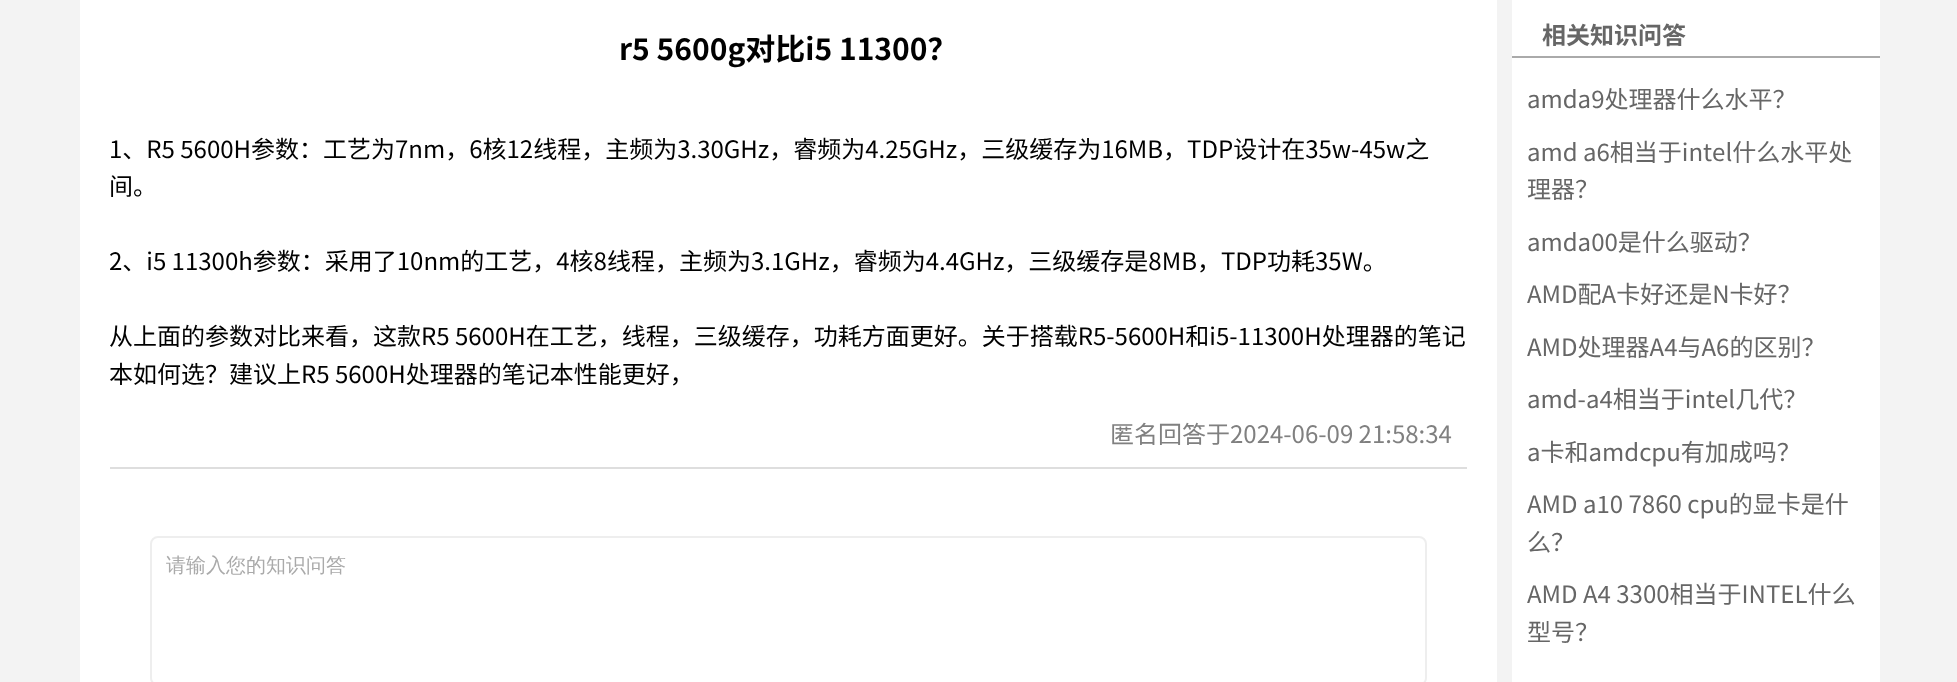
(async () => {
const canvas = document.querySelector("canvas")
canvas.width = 1957
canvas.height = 682
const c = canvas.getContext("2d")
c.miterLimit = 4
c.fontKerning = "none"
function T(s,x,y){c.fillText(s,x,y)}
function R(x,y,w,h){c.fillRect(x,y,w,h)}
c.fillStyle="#f3f3f3"
R(0,0,1957,682)
c.fillStyle="#fff"
R(80,0,1417,682)
c.font="bold 30px Noto Sans CJK SC"
c.fillStyle="#000"
T("r5 5600g对比i5 11300？",619,60)
c.font="24px Noto Sans CJK SC"
T("1、R5 5600H参数：工艺为7nm，6核12线程，主频为3.30GHz，睿频为4.25GHz，三级缓存为16MB，TDP设计在35w-45w之",109,158)
T("间。",109,195)
T("2、i5 11300h参数：采用了10nm的工艺，4核8线程，主频为3.1GHz，睿频为4.4GHz，三级缓存是8MB，TDP功耗35W。",109,270)
T("从上面的参数对比来看，这款R5 5600H在工艺，线程，三级缓存，功耗方面更好。关于搭载R5-5600H和i5-11300H处理器的笔记",109,345)
T("本如何选？建议上R5 5600H处理器的笔记本性能更好，",109,383)
c.fillStyle="#dedede"
R(110,467,1357,2)
c.fillStyle="#808080"
T("匿名回答于2024-06-09 21:58:34",1110,443)
c.beginPath()
c.roundRect(151,537,1275,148,7)
c.strokeStyle="#eee"
c.lineWidth=2
c.stroke()
c.font="500 20px WenQuanYi Zen Hei"
c.fillStyle="#aaa"
T("请输入您的知识问答",166,572)
c.fillStyle="#fff"
R(1512,0,368,682)
c.fillStyle="#aaa"
R(1512,56,368,2)
c.font="bold 24px Noto Sans CJK SC"
c.fillStyle="#666"
T("相关知识问答",1542,44)
c.font="24px Noto Sans CJK SC"
T("amda9处理器什么水平？",1527,108)
T("amd a6相当于intel什么水平处",1527,161)
T("理器？",1527,198)
T("amda00是什么驱动？",1527,251)
T("AMD配A卡好还是N卡好？",1527,303)
T("AMD处理器A4与A6的区别？",1527,356)
T("amd-a4相当于intel几代？",1527,408)
T("a卡和amdcpu有加成吗？",1527,461)
T("AMD a10 7860 cpu的显卡是什",1527,513)
T("么？",1527,551)
T("AMD A4 3300相当于INTEL什么",1527,603)
T("型号？",1527,641)
})()
